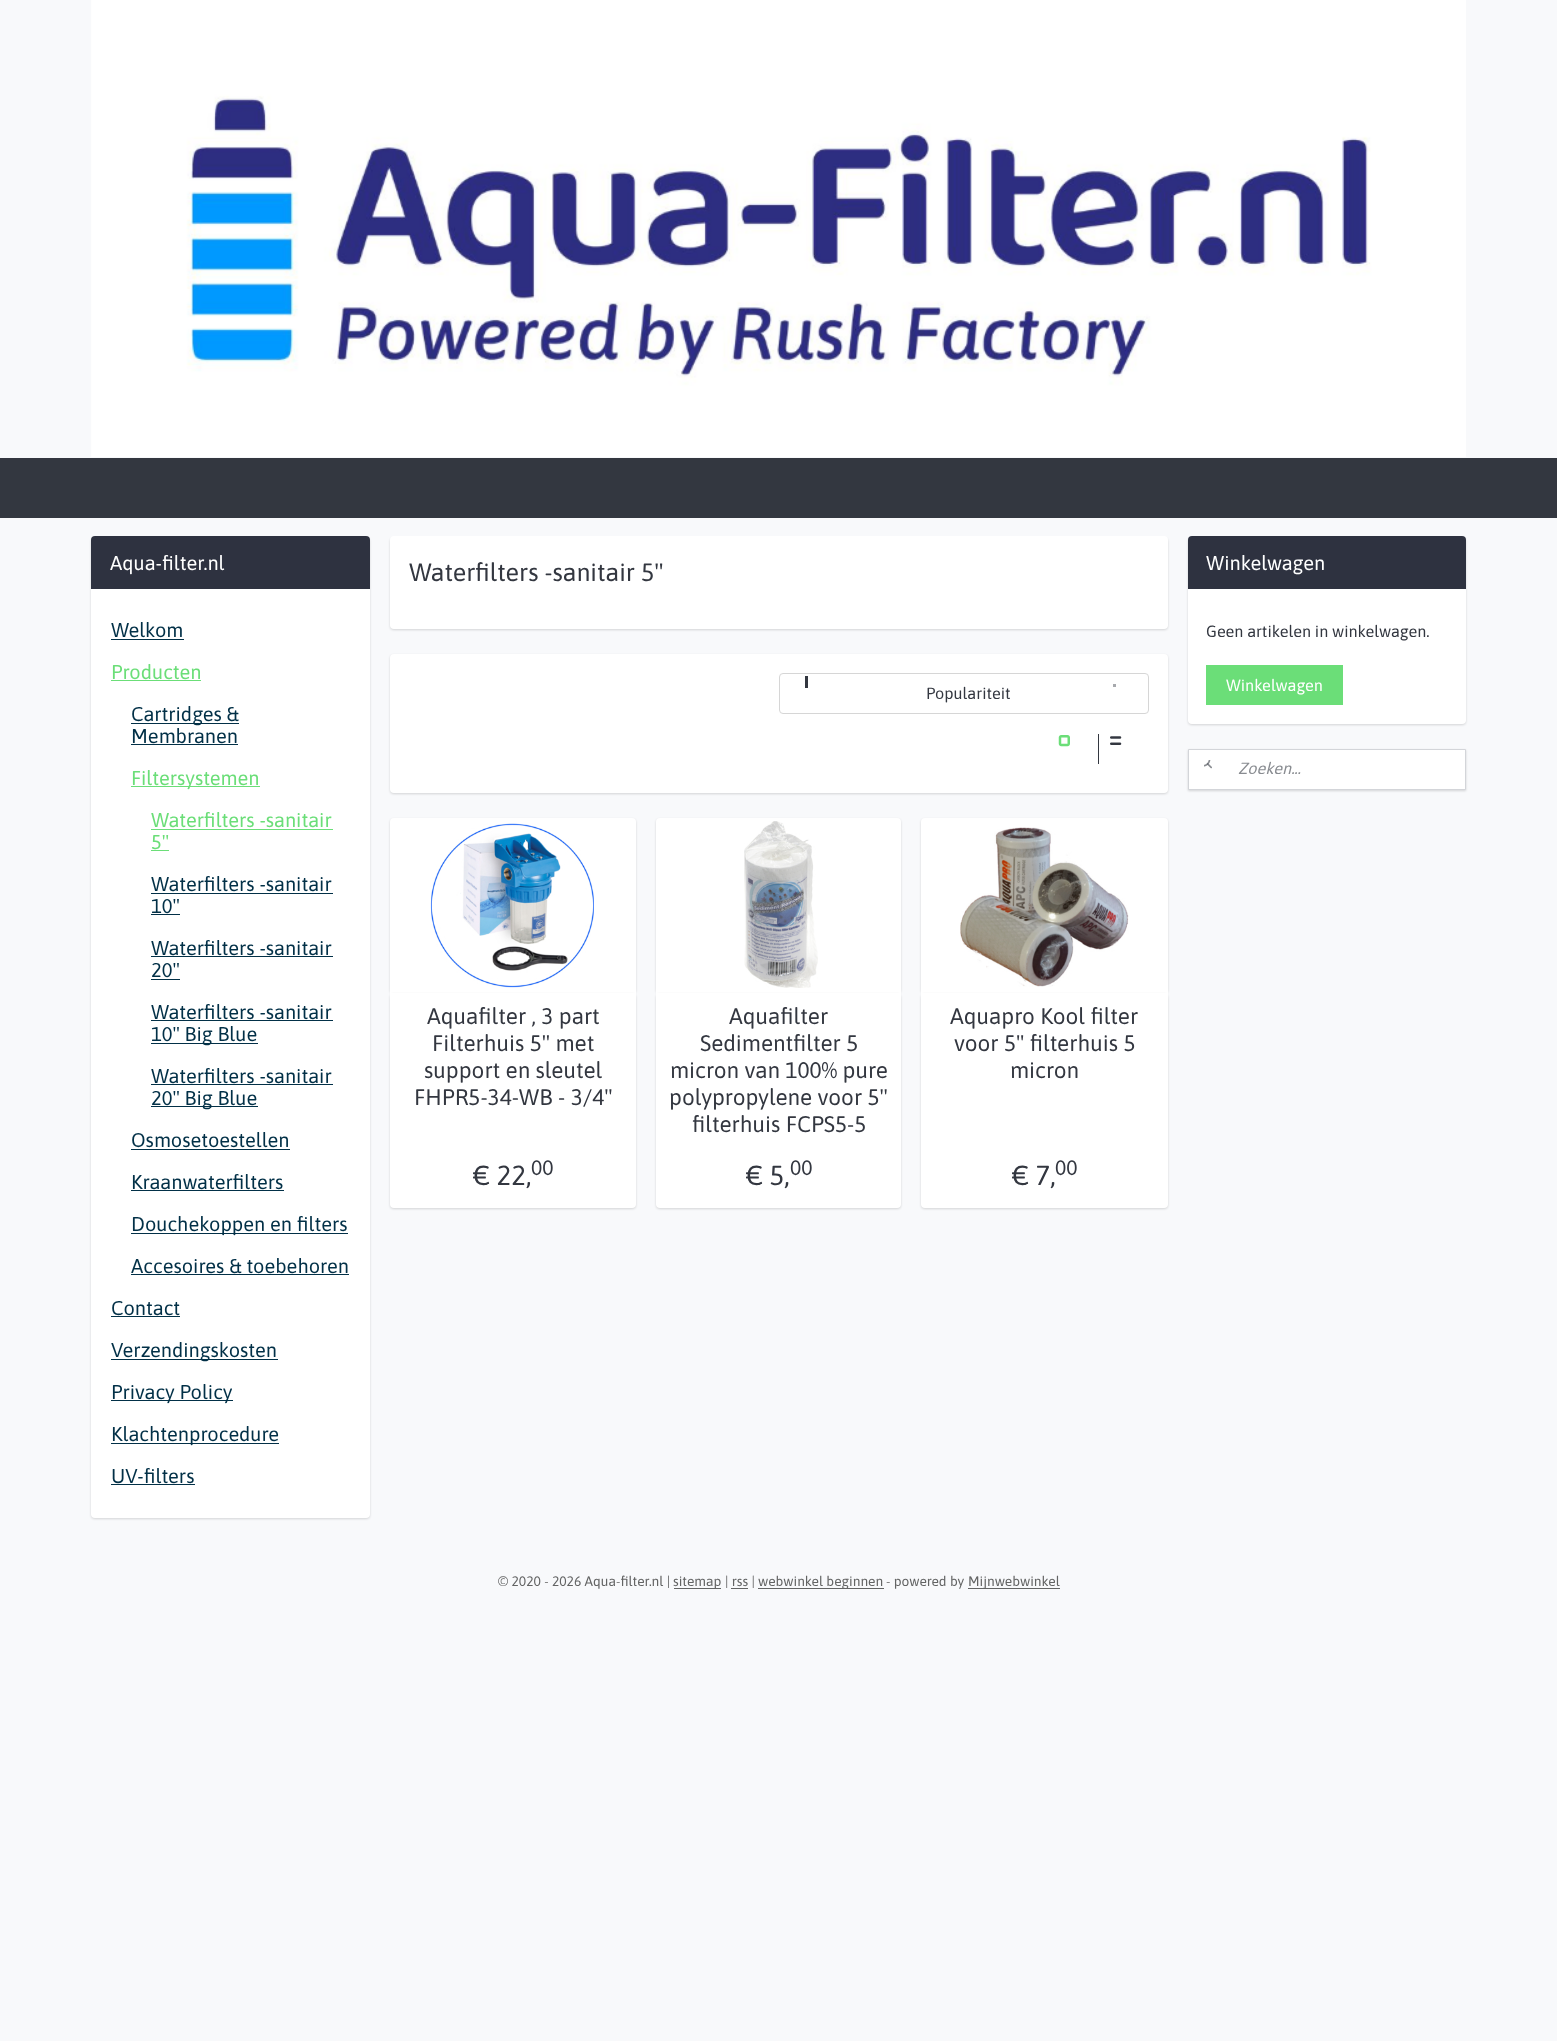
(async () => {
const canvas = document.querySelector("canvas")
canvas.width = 1557
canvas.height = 2041
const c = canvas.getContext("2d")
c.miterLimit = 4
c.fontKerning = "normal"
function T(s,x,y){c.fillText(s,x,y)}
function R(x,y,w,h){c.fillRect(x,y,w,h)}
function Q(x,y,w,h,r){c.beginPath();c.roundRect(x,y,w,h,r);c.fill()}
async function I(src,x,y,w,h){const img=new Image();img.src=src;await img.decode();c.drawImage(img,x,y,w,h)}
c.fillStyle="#f8f9fb"
R(0,0,1557,2041)
await I("1.png",91,0,1375,457)
c.fillStyle="#333740"
R(0,458,1557,60)
c.fillStyle="#00000026"
c.filter="blur(1px)"
c.beginPath()
c.roundRect(91,538,279,981,4)
c.fill()
c.filter="none"
c.fillStyle="#fff"
Q(91,536,279,982,4)
c.fillStyle="#2e3240"
c.beginPath()
c.roundRect(91,536,279,53,[4,4,0,0])
c.fill()
c.font="20px Asap"
c.fillStyle="#fff"
T("Aqua-filter.nl",110,570)
c.fillStyle="#023047"
T("Welkom",111,637)
R(111,639,73,1)
c.fillStyle="#6bde78"
T("Producten",111,679)
R(111,680,90,1)
c.fillStyle="#023047"
R(131,723,108,1)
T("Cartridges &",131,721)
T("Membranen",131,743)
R(131,744,107,1)
c.fillStyle="#6bde78"
R(131,786,129,1)
T("Filtersystemen",131,785)
T("Waterfilters -sanitair",151,827)
R(151,829,182,1)
T("5\"",151,849)
R(151,850,18,1)
c.fillStyle="#023047"
T("Waterfilters -sanitair",151,891)
R(151,893,182,1)
T("10\"",151,913)
R(151,914,29,1)
T("Waterfilters -sanitair",151,955)
R(151,956,182,1)
T("20\"",151,977)
R(151,979,29,1)
T("Waterfilters -sanitair",151,1019)
R(151,1020,182,1)
R(151,1043,107,1)
T("10\" Big Blue",151,1041)
T("Waterfilters -sanitair",151,1083)
R(151,1084,182,1)
R(151,1106,107,1)
T("20\" Big Blue",151,1105)
T("Osmosetoestellen",131,1147)
R(131,1149,159,1)
T("Kraanwaterfilters",131,1189)
R(131,1190,153,1)
R(131,1233,217,1)
T("Douchekoppen en filters",131,1231)
T("Accesoires & toebehoren",131,1273)
R(131,1274,218,1)
T("Contact",111,1315)
R(111,1316,69,1)
R(111,1359,167,1)
T("Verzendingskosten",111,1357)
R(111,1400,122,1)
T("Privacy Policy",111,1399)
R(111,1443,168,1)
T("Klachtenprocedure",111,1441)
T("UV-filters",111,1483)
R(111,1484,84,1)
c.fillStyle="#00000026"
c.filter="blur(1px)"
c.beginPath()
c.roundRect(390,538,778,92,4)
c.fill()
c.filter="none"
c.fillStyle="#fff"
Q(390,536,778,93,4)
c.font="25px Asap"
c.fillStyle="#333740"
T("Waterfilters -sanitair 5\"",409,581)
c.fillStyle="#00000026"
c.filter="blur(1px)"
c.beginPath()
c.roundRect(390,655,778,139,4)
c.fill()
c.filter="none"
c.fillStyle="#fff"
Q(390,654,778,139,4)
c.beginPath()
c.roundRect(779.5,673.5,369,40,3.5)
c.strokeStyle="#d6d6d6"
c.stroke()
c.fillStyle="#333740"
R(805,676,3,12)
c.fillStyle="#a7a9ad"
R(1113,684,3,3)
c.font="16.25px Asap"
c.fillStyle="#333740"
T("Populariteit",926,699)
await I("2.png",1058,735,12,12)
R(1098,734,1,30)
await I("3.png",1110,736,12,9)
c.fillStyle="#00000026"
c.filter="blur(1px)"
c.beginPath()
c.roundRect(390,819,246,175,4)
c.fill()
c.filter="none"
c.fillStyle="#fff"
c.beginPath()
c.roundRect(390,818,246,175,[4,4,0,0])
c.fill()
await I("4.png",430,823,164,165)
c.fillStyle="#00000026"
c.filter="blur(1px)"
c.beginPath()
c.roundRect(390,994,246,215,4)
c.fill()
c.filter="none"
c.fillStyle="#fff"
c.beginPath()
c.roundRect(390,993,246,215,[0,0,4,4])
c.fill()
c.font="22.5px Asap"
c.fillStyle="#333740"
T("Aquafilter , 3 part",427,1024)
T("Filterhuis 5\" met",432,1051)
T("support en sleutel",424,1078)
T("FHPR5-34-WB - 3/4\"",414,1105)
c.font="27.5px Asap"
T("€ 22,",473,1185)
c.font="21px Asap"
T("00",531,1175)
c.fillStyle="#00000026"
c.filter="blur(1px)"
c.beginPath()
c.roundRect(656,819,245,175,4)
c.fill()
c.filter="none"
c.fillStyle="#fff"
c.beginPath()
c.roundRect(656,818,245,175,[4,4,0,0])
c.fill()
await I("5.png",744,821,74,167)
c.fillStyle="#00000026"
c.filter="blur(1px)"
c.beginPath()
c.roundRect(656,994,245,215,4)
c.fill()
c.filter="none"
c.fillStyle="#fff"
c.beginPath()
c.roundRect(656,993,245,215,[0,0,4,4])
c.fill()
c.font="22.5px Asap"
c.fillStyle="#333740"
T("Aquafilter",729,1024)
T("Sedimentfilter 5",700,1051)
T("micron van 100% pure",670,1078)
T("polypropylene voor 5\"",669,1105)
T("filterhuis FCPS5-5",692,1132)
c.font="27.5px Asap"
T("€ 5,",746,1185)
c.font="21px Asap"
T("00",790,1175)
c.fillStyle="#00000026"
c.filter="blur(1px)"
c.beginPath()
c.roundRect(921,819,247,175,4)
c.fill()
c.filter="none"
c.fillStyle="#fff"
c.beginPath()
c.roundRect(921,818,247,175,[4,4,0,0])
c.fill()
await I("6.png",960,827,169,160)
c.fillStyle="#00000026"
c.filter="blur(1px)"
c.beginPath()
c.roundRect(921,994,247,215,4)
c.fill()
c.filter="none"
c.fillStyle="#fff"
c.beginPath()
c.roundRect(921,993,247,215,[0,0,4,4])
c.fill()
c.font="22.5px Asap"
c.fillStyle="#333740"
T("Aquapro Kool filter",950,1024)
T("voor 5\" filterhuis 5",954,1051)
T("micron",1010,1078)
c.font="27.5px Asap"
T("€ 7,",1012,1185)
c.font="21px Asap"
T("00",1055,1175)
c.fillStyle="#00000026"
c.filter="blur(1px)"
c.beginPath()
c.roundRect(1188,538,278,187,4)
c.fill()
c.filter="none"
c.fillStyle="#fff"
Q(1188,536,278,188,4)
c.fillStyle="#2e3240"
c.beginPath()
c.roundRect(1188,536,278,53,[4,4,0,0])
c.fill()
c.font="20px Asap"
c.fillStyle="#fff"
T("Winkelwagen",1206,570)
c.font="16.25px Asap"
c.fillStyle="#333740"
T("Geen artikelen in winkelwagen.",1206,637)
c.fillStyle="#6bde78"
R(1206,665,137,40)
c.fillStyle="#fff"
T("Winkelwagen",1226,691)
c.fillStyle="#00000026"
c.filter="blur(1px)"
c.beginPath()
c.rect(1188,750,278,41)
c.fill()
c.filter="none"
c.fillStyle="#fff"
c.beginPath()
c.rect(1188.5,749.5,277,40)
c.fill()
c.strokeStyle="#d3d5d9"
c.stroke()
await I("7.png",1204,760,8,9)
c.font="italic 16.25px Asap"
c.fillStyle="#898c91"
T("Zoeken...",1238,774)
c.font="13.75px Asap"
c.fillStyle="#636464"
T("© 2020 - 2026 Aqua-filter.nl |",498,1586)
R(674,1588,47,1)
T("sitemap",673,1586)
T("| rss |",725,1586)
R(758,1588,126,1)
T("webwinkel beginnen",758,1586)
T("- powered by",886,1586)
R(968,1588,92,1)
T("Mijnwebwinkel",968,1586)
R(731,1588,17,1)
})()
